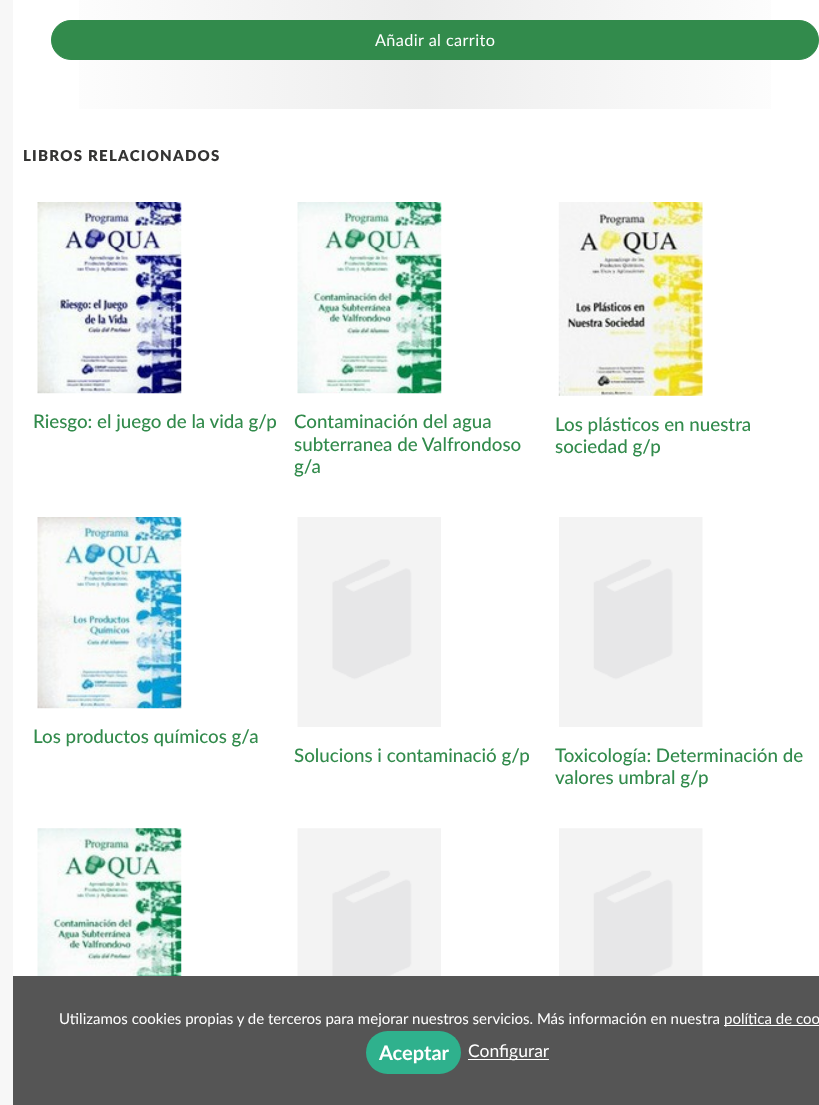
(async () => {
const canvas = document.querySelector("canvas")
canvas.width = 819
canvas.height = 1105
const c = canvas.getContext("2d")
c.miterLimit = 4
c.fontKerning = "normal"
function T(s,x,y){c.fillText(s,x,y)}
function R(x,y,w,h){c.fillRect(x,y,w,h)}
function Q(x,y,w,h,r){c.beginPath();c.roundRect(x,y,w,h,r);c.fill()}
async function I(src,x,y,w,h){const img=new Image();img.src=src;await img.decode();c.drawImage(img,x,y,w,h)}
let gradient
c.fillStyle="#f7f7f7"
R(0,0,819,1105)
c.fillStyle="#fff"
R(13,0,806,976)
gradient = c.createLinearGradient(23,-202,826,-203)
gradient.addColorStop(0,"#fff")
gradient.addColorStop(.5,"#ededed")
gradient.addColorStop(1,"#fff")
c.fillStyle = gradient
R(79,0,692,109)
c.fillStyle="#328b4c"
c.beginPath()
c.roundRect(51.5,20.5,767,39,19.5)
c.fill()
c.strokeStyle="#328b4c"
c.stroke()
c.letterSpacing="0.4px"
c.font="16.25px Lato"
c.fillStyle="#fff"
T("Añadir al carrito",375,46)
c.letterSpacing="1.25px"
c.font="800 15px Lato"
c.fillStyle="#343433"
T("LIBROS RELACIONADOS",23,161)
await I("1.png",37,202,145,192)
c.letterSpacing="0px"
c.font="500 18.75px Lato"
c.fillStyle="#328b4c"
T("Riesgo: el juego de la vida g/p",33,428)
await I("2.png",297,202,145,192)
T("Contaminación del agua",294,428)
T("subterranea de Valfrondoso",294,451)
T("g/a",294,473)
await I("3.png",558,202,145,194)
T("Los plásticos en nuestra",555,431)
T("sociedad g/p",555,453)
await I("4.png",37,517,145,192)
T("Los productos químicos g/a",33,743)
await I("5.png",297,517,144,210)
T("Solucions i contaminació g/p",294,762)
await I("6.png",559,517,144,210)
T("Toxicología: Determinación de",555,762)
T("valores umbral g/p",555,784)
await I("7.png",37,828,145,148)
await I("8.png",297,828,144,148)
await I("9.png",559,828,144,148)
c.fillStyle="#555"
R(13,976,806,129)
c.font="15px Lato"
c.fillStyle="#fff"
T("Utilizamos cookies propias y de terceros para mejorar nuestros servicios. Más información en nuestra",59,1024)
R(724,1025,95,1)
T("política de coo",724,1024)
c.fillStyle="#2fb18d"
Q(366,1031,95,43,21.5)
c.font="bold 20px Lato"
c.fillStyle="#fff"
T("Aceptar",379,1060)
R(468,1059,81,1)
c.font="17.5px Lato"
T("Configurar",468,1057)
})()
